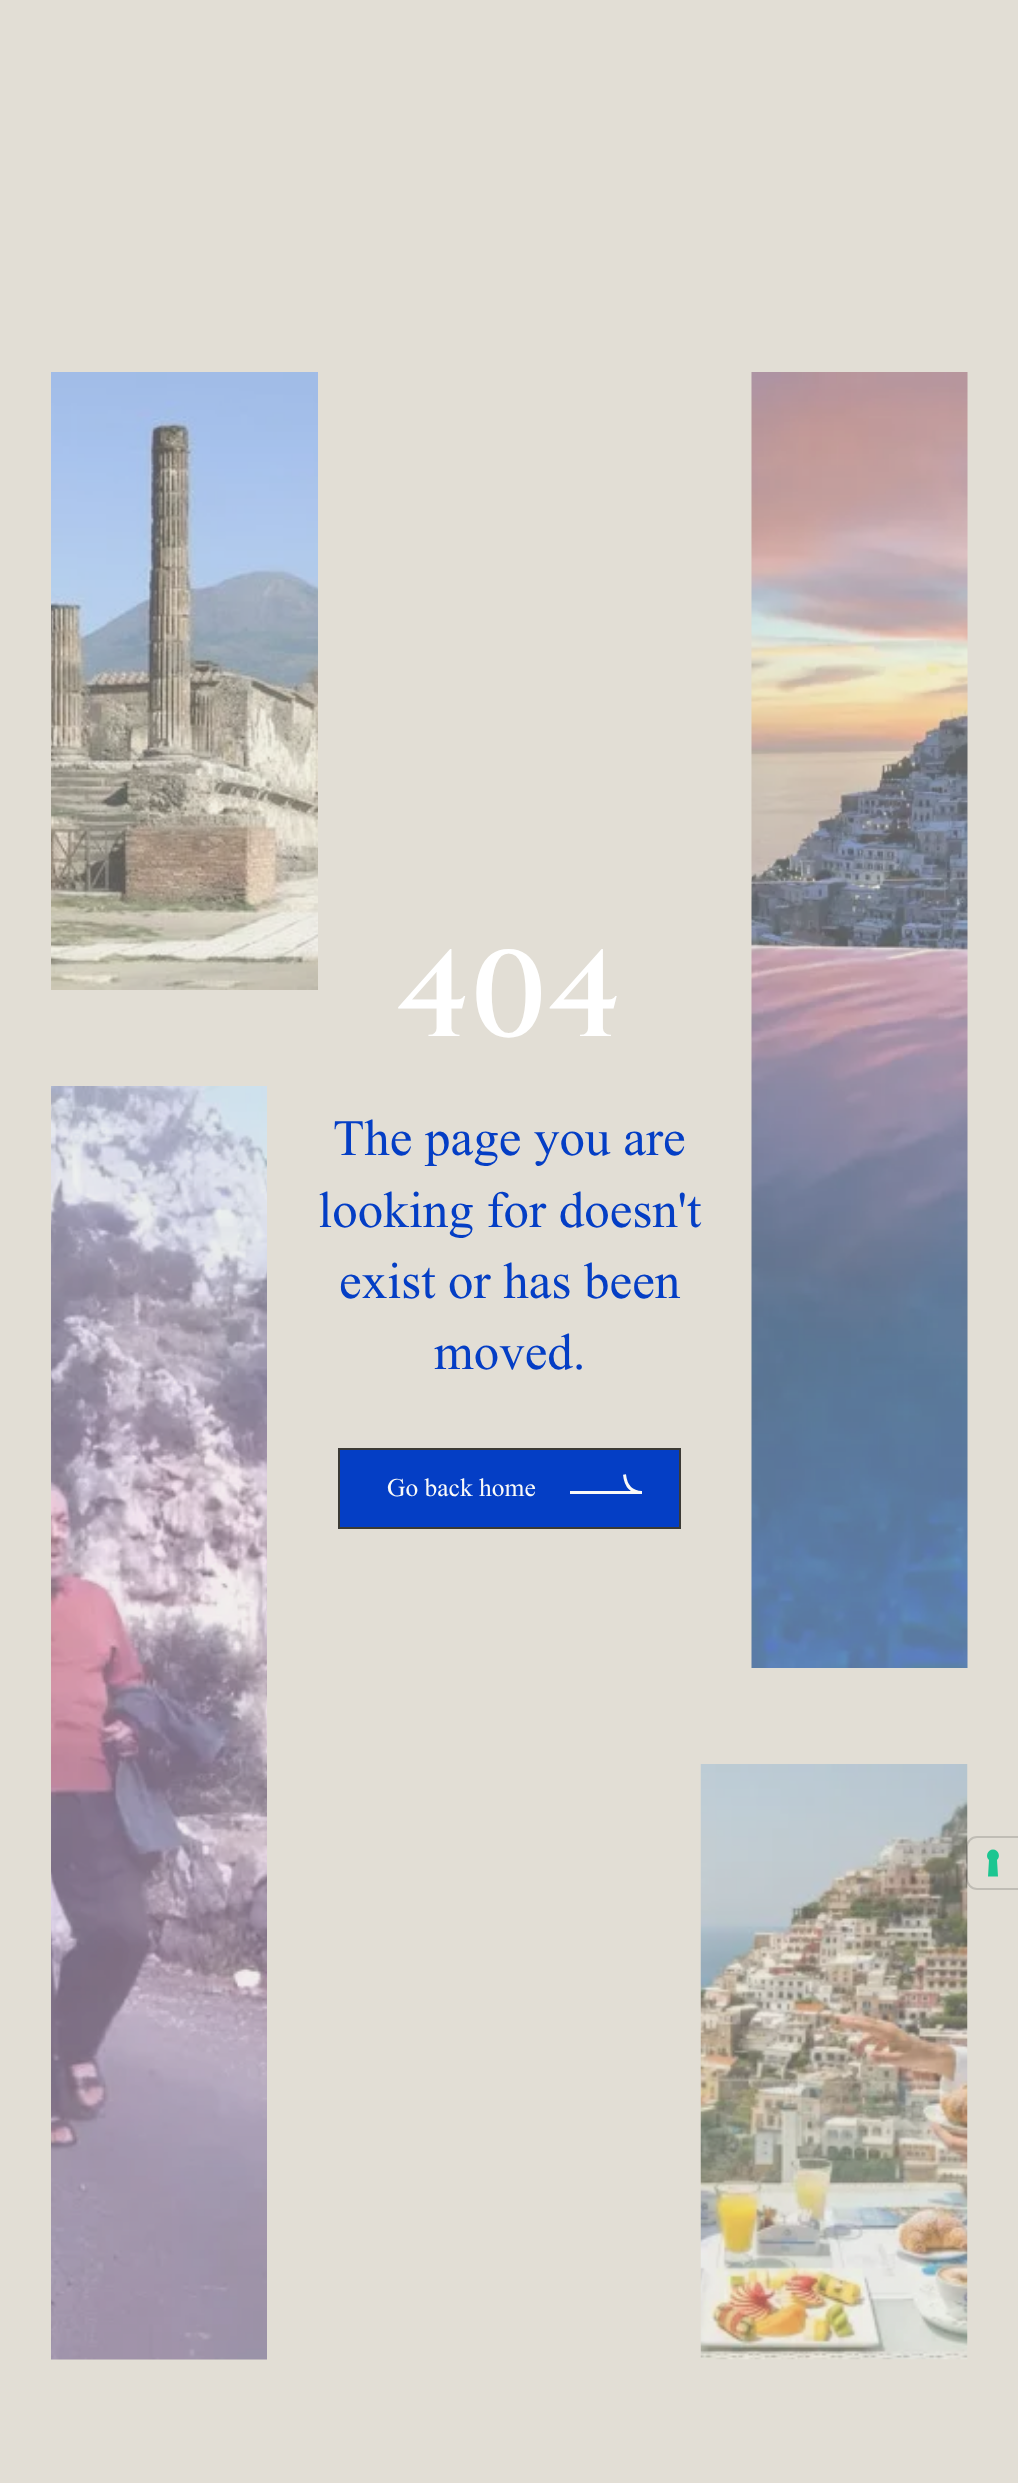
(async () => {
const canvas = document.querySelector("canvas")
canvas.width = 1018
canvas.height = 2483
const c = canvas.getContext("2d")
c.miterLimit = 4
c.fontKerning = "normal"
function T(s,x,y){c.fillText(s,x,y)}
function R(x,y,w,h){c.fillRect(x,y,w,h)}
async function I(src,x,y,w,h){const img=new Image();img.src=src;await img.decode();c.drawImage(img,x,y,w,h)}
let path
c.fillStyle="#e2ded5"
R(0,0,1018,2483)
await I("1.png",51,372,267,618)
await I("2.png",751,372,217,1296)
await I("3.png",51,1086,216,1274)
await I("4.png",700,1764,268,596)
c.font="600 122px Cinzel"
c.fillStyle="#fff"
T("404",396,1036)
c.font="51px Times New Roman"
c.fillStyle="#043ec5"
T("The page you are",333,1155)
T("looking for doesn't",318,1227)
T("exist or has been",339,1298)
T("moved.",434,1369)
R(340,1450,339,77)
path = new Path2D("M570 1492.5h72c-7.5 0-16-3.5-17.5-18")
c.strokeStyle="#fafaf8"
c.lineWidth=3
c.stroke(path)
c.strokeStyle="#3c3a34"
c.lineWidth=2
c.strokeRect(339,1449,341,79)
c.font="25.5px Times New Roman"
c.fillStyle="#fafaf8"
T("Go back home",387,1496)
path = new Path2D("M977 1837h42v52h-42c-5.5 0-10-4.5-10-10v-32c0-5.5 4.5-10 10-10z")
c.strokeStyle="#00000026"
c.stroke(path)
c.fillStyle="#1cc691"
path = new Path2D("M993 1849.5c5.5 0 8 7 4 10.5l1 16.5h-10l1-16.5c-4-3.5-1.5-10.5 4-10.5z")
c.fill(path,"evenodd")
})()
